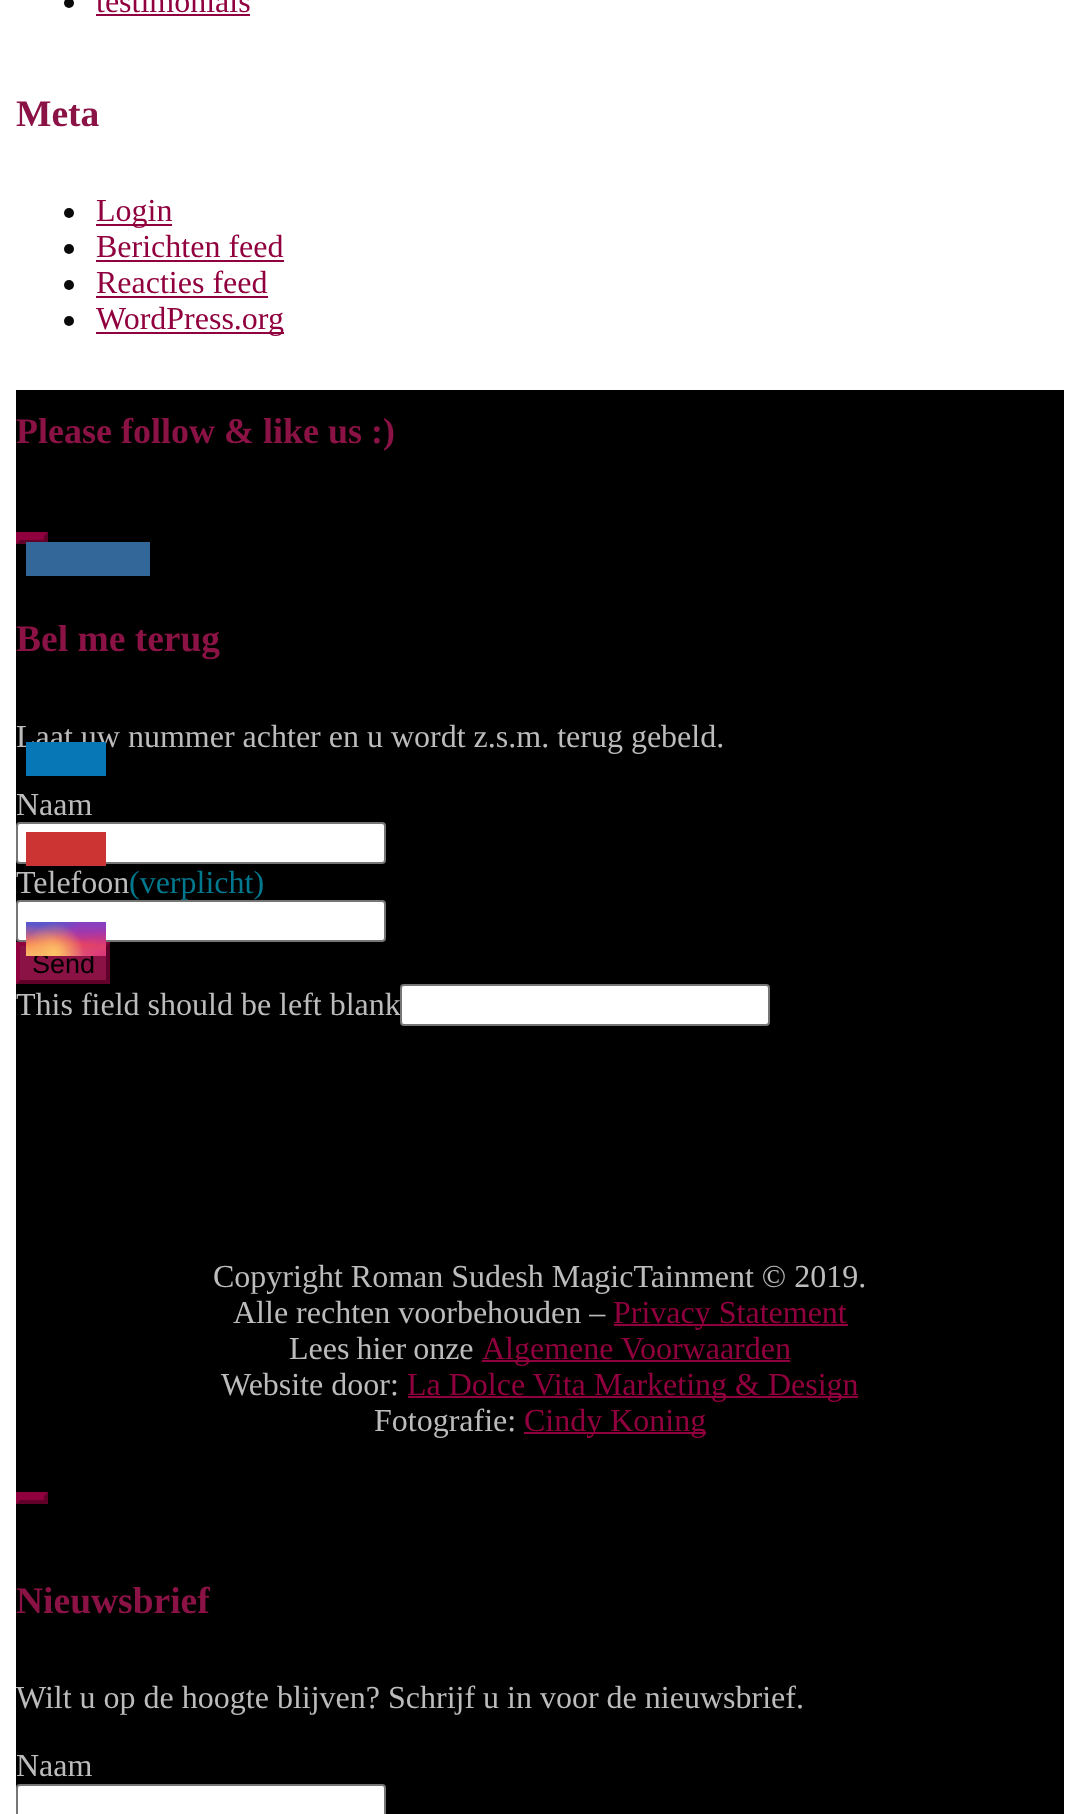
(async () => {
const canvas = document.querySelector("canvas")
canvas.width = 1079
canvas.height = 1814
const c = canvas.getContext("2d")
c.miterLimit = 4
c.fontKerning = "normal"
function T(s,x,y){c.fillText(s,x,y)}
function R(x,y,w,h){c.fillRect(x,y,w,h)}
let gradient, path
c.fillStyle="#fff"
R(0,0,1079,1814)
c.fillStyle="#0a0a0a"
c.beginPath()
c.arc(69,3,5,0,7)
c.fill()
c.font="32px Liberation Serif"
c.fillStyle="#91003e"
T("testimonials",96,12)
R(96,14,154,2)
c.font="bold 37.5px Liberation Serif"
c.fillStyle="#8a1245"
T("Meta",16,126)
c.fillStyle="#0a0a0a"
c.beginPath()
c.arc(69,213,5,0,7)
c.fill()
c.fillStyle="#91003e"
R(96,224,76,2)
c.font="32px Liberation Serif"
T("Login",96,221)
c.fillStyle="#0a0a0a"
c.beginPath()
c.arc(69,249,5,0,7)
c.fill()
c.fillStyle="#91003e"
T("Berichten feed",96,257)
R(96,260,188,2)
c.fillStyle="#0a0a0a"
c.beginPath()
c.arc(69,285,5,0,7)
c.fill()
c.fillStyle="#91003e"
T("Reacties feed",96,293)
R(96,296,172,2)
c.fillStyle="#0a0a0a"
c.beginPath()
c.arc(69,321,5,0,7)
c.fill()
c.fillStyle="#91003e"
R(96,332,188,2)
T("WordPress.org",96,329)
c.fillStyle="#000"
R(16,390,1048,1424)
c.font="bold 36px Liberation Serif"
c.fillStyle="#8a1245"
T("Please follow & like us :)",16,443)
c.fillStyle="#91003e"
R(16,532,32,12)
c.fillStyle="#610029"
path = new Path2D("M48 532v12l-4-4v-4z")
c.fill(path)
path = new Path2D("M48 544h-32l4-4h24z")
c.fill(path)
c.fillStyle="#369"
R(26,542,124,34)
c.font="32px Liberation Serif"
c.fillStyle="#bcbcbc"
T("Laat uw nummer achter en u wordt z.s.m. terug gebeld.",16,747)
c.fillStyle="#0877b5"
R(26,742,80,34)
c.fillStyle="#fff"
c.beginPath()
c.roundRect(17,823,368,40,3)
c.fill()
c.strokeStyle="#767676"
c.lineWidth=2
c.stroke()
c.fillStyle="#c33"
R(26,832,80,34)
c.fillStyle="#fff"
c.beginPath()
c.roundRect(17,901,368,40,3)
c.fill()
c.stroke()
c.fillStyle="#8a1245"
R(16,942,94,42)
c.fillStyle="#91003e"
path = new Path2D("M16 942h94l-4 4h-86z")
c.fill(path)
c.font="27px Liberation Sans"
c.fillStyle="#000"
T("Send",32,973)
gradient = c.createLinearGradient(66,922,66,956)
gradient.addColorStop(0,"#6559ca")
gradient.addColorStop(.3,"#bc318f")
gradient.addColorStop(.5,"#e33f5f")
gradient.addColorStop(.7,"#f77638")
gradient.addColorStop(1,"#fec66d")
c.fillStyle = gradient
R(26,922,80,34)
gradient = c.createRadialGradient(106,2250.58,0,106,2250.58,113)
gradient.addColorStop(0,"#d9317a")
gradient.addColorStop(1,"#d9317a00")
c.fillStyle = gradient
c.beginPath()
c.rect(26,922,80,34)
c.save()
c.clip()
c.scale(1,48 / 113)
c.fillRect(0,0,1079,4271)
c.restore()
gradient = c.createRadialGradient(74,1072.76,0,74,1072.76,68)
gradient.addColorStop(0,"#893dc2")
gradient.addColorStop(.5,"#893dc200")
c.fillStyle = gradient
c.beginPath()
c.rect(45,922,59,21)
c.save()
c.clip()
c.scale(1,58 / 68)
c.fillRect(0,0,1079,2127)
c.restore()
gradient = c.createRadialGradient(106,2170.54,0,106,2170.54,113)
gradient.addColorStop(0,"#893dc2")
gradient.addColorStop(.5,"#893dc200")
c.fillStyle = gradient
c.beginPath()
c.rect(56,922,50,23)
c.save()
c.clip()
c.scale(1,48 / 113)
c.fillRect(0,0,1079,4271)
c.restore()
gradient = c.createRadialGradient(42,1143.82,0,42,1143.82,91)
gradient.addColorStop(0,"#5258cf")
gradient.addColorStop(.5,"#5258cf00")
c.fillStyle = gradient
c.beginPath()
c.rect(26,922,53,18)
c.save()
c.clip()
c.scale(1,72 / 91)
c.fillRect(0,0,1079,2293)
c.restore()
gradient = c.createRadialGradient(26,1721.37,0,26,1721.37,113)
gradient.addColorStop(0,"#5258cf")
gradient.addColorStop(.5,"#5258cf00")
c.fillStyle = gradient
c.beginPath()
c.rect(26,922,51,21)
c.save()
c.clip()
c.scale(1,60 / 113)
c.fillRect(0,0,1079,3417)
c.restore()
gradient = c.createRadialGradient(26,970,0,26,970,93)
gradient.addColorStop(0,"#fec564")
gradient.addColorStop(.5,"#fec56400")
c.fillStyle = gradient
R(26,925,43,31)
gradient = c.createRadialGradient(54,953,0,54,953,60)
gradient.addColorStop(0,"#fec564")
gradient.addColorStop(.5,"#fec56400")
c.fillStyle = gradient
R(26,924,57,32)
c.fillStyle="#91003e"
path = new Path2D("M16 544v-12l4 4v4z")
c.fill(path)
c.font="bold 37.5px Liberation Serif"
c.fillStyle="#8a1245"
T("Bel me terug",16,651)
c.font="32px Liberation Serif"
c.fillStyle="#bcbcbc"
T("Naam",16,815)
T("Telefoon",16,893)
c.fillStyle="#00788e"
T("(verplicht)",129,893)
c.fillStyle="#610029"
path = new Path2D("M110 942v42l-4-4v-34z")
c.fill(path)
path = new Path2D("M110 984h-94l4-4h86z")
c.fill(path)
c.fillStyle="#91003e"
path = new Path2D("M16 984v-42l4 4v34z")
c.fill(path)
c.fillStyle="#bcbcbc"
T("This field should be left blank",16,1015)
c.fillStyle="#fff"
c.beginPath()
c.roundRect(401,985,368,40,3)
c.fill()
c.stroke()
c.fillStyle="#bcbcbc"
T("Copyright Roman Sudesh MagicTainment © 2019.",213,1287)
T("Alle rechten voorbehouden –",233,1323)
c.fillStyle="#91003e"
R(614,1324,234,2)
T("Privacy Statement",613,1323)
c.wordSpacing="-1px"
c.fillStyle="#bcbcbc"
T("Lees hier onze",289,1359)
c.fillStyle="#91003e"
R(482,1360,308,2)
c.wordSpacing="0px"
T("Algemene Voorwaarden",482,1359)
c.fillStyle="#bcbcbc"
T("Website door:",221,1395)
c.fillStyle="#91003e"
R(408,1396,450,2)
T("La Dolce Vita Marketing & Design",407,1395)
c.fillStyle="#bcbcbc"
T("Fotografie:",374,1431)
c.fillStyle="#91003e"
R(524,1432,182,2)
T("Cindy Koning",524,1431)
R(16,1492,32,12)
c.fillStyle="#610029"
path = new Path2D("M48 1492v12l-4-4v-4z")
c.fill(path)
path = new Path2D("M48 1504h-32l4-4h24z")
c.fill(path)
c.fillStyle="#91003e"
path = new Path2D("M16 1504v-12l4 4v4z")
c.fill(path)
c.font="bold 37.5px Liberation Serif"
c.fillStyle="#8a1245"
T("Nieuwsbrief",16,1613)
c.font="32px Liberation Serif"
c.fillStyle="#bcbcbc"
T("Wilt u op de hoogte blijven? Schrijf u in voor de nieuwsbrief.",16,1708)
T("Naam",16,1776)
c.fillStyle="#fff"
c.beginPath()
c.roundRect(17,1785,368,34,3)
c.fill()
c.stroke()
})()
